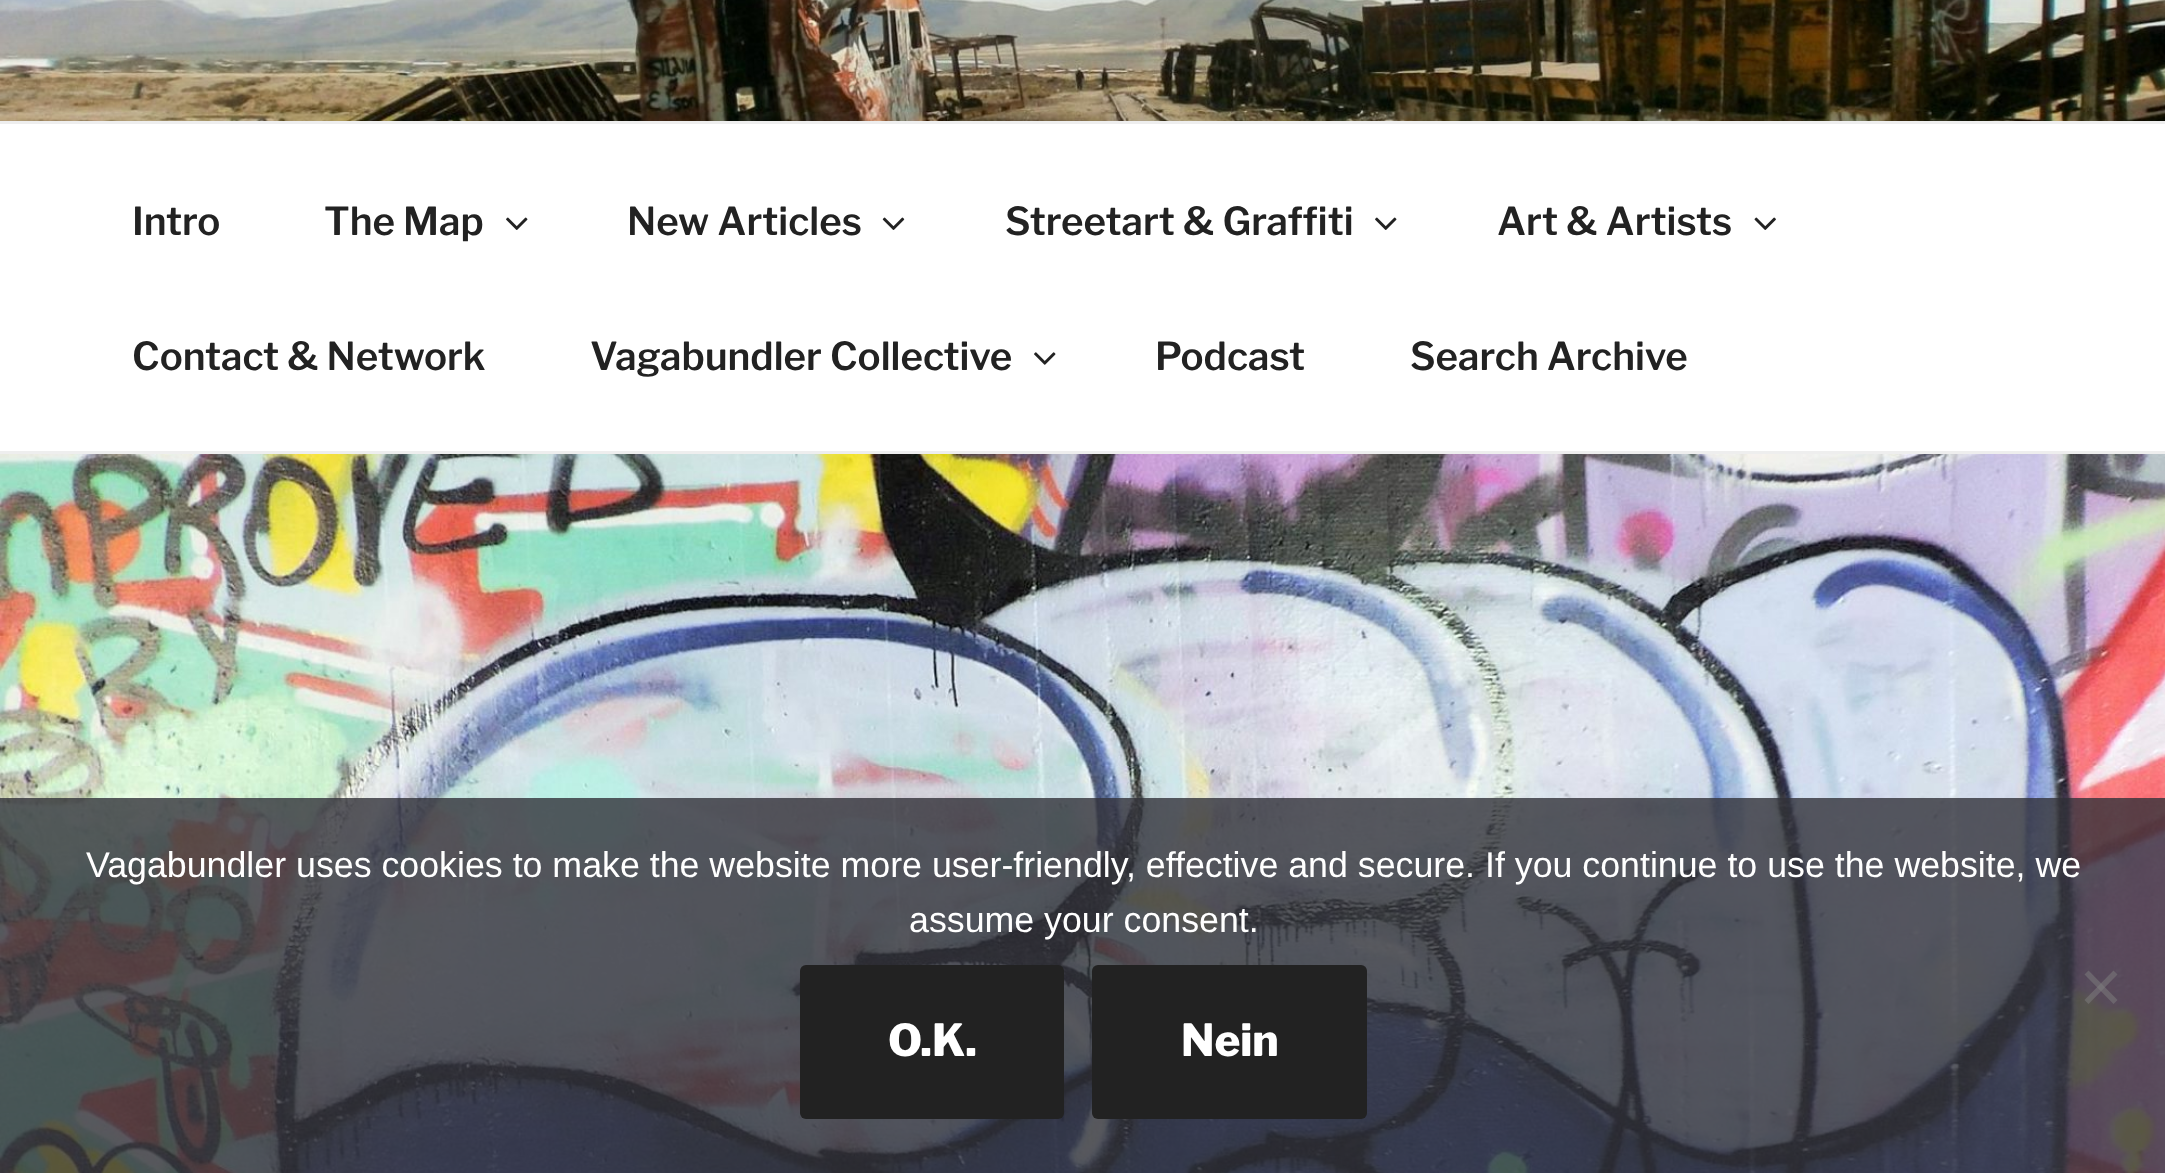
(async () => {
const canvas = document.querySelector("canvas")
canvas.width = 2165
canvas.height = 1173
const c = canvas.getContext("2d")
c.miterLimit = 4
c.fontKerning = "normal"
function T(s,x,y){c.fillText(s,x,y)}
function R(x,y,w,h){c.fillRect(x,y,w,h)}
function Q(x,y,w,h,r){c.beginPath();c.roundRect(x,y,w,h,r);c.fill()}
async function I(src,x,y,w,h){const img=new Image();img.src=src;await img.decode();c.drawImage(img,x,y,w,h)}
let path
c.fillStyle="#fff"
R(0,0,2165,1173)
await I("1.png",0,0,2165,121)
c.fillStyle="#eee"
R(0,121,2165,3)
R(0,451,2165,3)
c.font="100 38.5px Libre Franklin"
c.fillStyle="#222"
T("Intro",132,235)
T("The Map",324,235)
await I("2.png",506,217,22,13)
T("New Articles",627,235)
await I("3.png",882,217,23,13)
T("Streetart & Graffiti",1005,235)
await I("2.png",1375,217,22,13)
T("Art & Artists",1497,235)
await I("4.png",1754,217,22,13)
T("Contact & Network",132,370)
T("Vagabundler Collective",590,370)
await I("5.png",1034,352,22,13)
T("Podcast",1155,370)
T("Search Archive",1410,370)
await I("6.png",0,454,2165,719)
c.fillStyle="#32323acc"
R(0,798,2165,375)
c.font="35.75px Liberation Sans"
c.fillStyle="#fff"
T("Vagabundler uses cookies to make the website more user-friendly, effective and secure. If you continue to use the website, we",86,877)
T("assume your consent.",909,932)
c.fillStyle="#80808080"
path = new Path2D("M2113.5 970.5l4 4l-29 29.5l-4-4z")
c.fill(path)
path = new Path2D("M2084.5 974.5l4-4l29 29.5l-4 4z")
c.fill(path)
c.fillStyle="#222"
Q(800,965,264,154,6)
c.font="100 44px 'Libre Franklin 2'"
c.fillStyle="#fff"
T("O.K.",888,1056)
c.fillStyle="#222"
Q(1092,965,275,154,6)
c.fillStyle="#fff"
T("Nein",1181,1056)
})()
